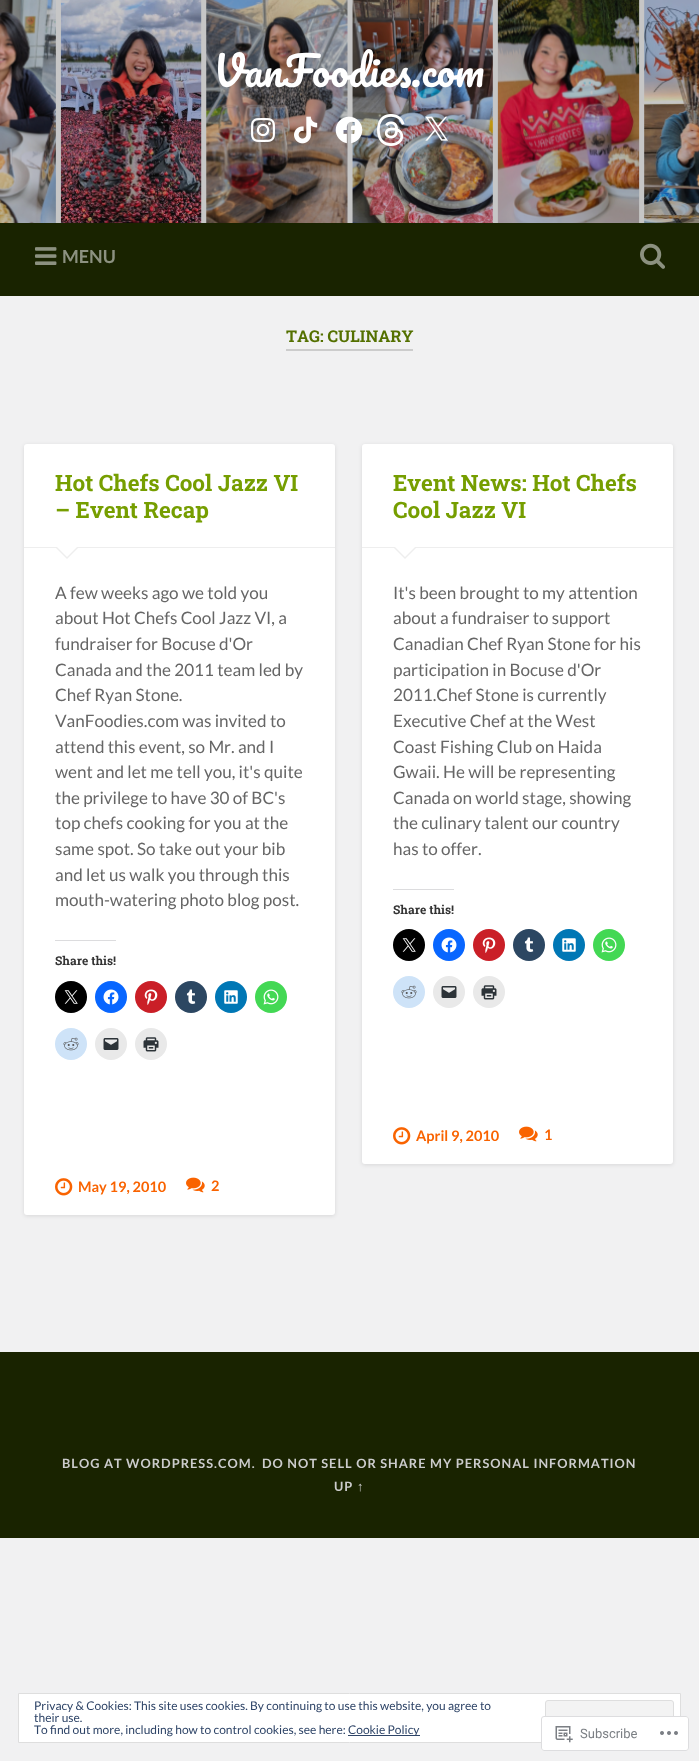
(async () => {
const canvas = document.querySelector("canvas")
canvas.width = 699
canvas.height = 1761
const c = canvas.getContext("2d")
c.miterLimit = 4
c.fontKerning = "none"
function T(s,x,y){c.fillText(s,x,y)}
function R(x,y,w,h){c.fillRect(x,y,w,h)}
function Q(x,y,w,h,r){c.beginPath();c.roundRect(x,y,w,h,r);c.fill()}
async function I(src,x,y,w,h){const img=new Image();img.src=src;await img.decode();c.drawImage(img,x,y,w,h)}
let path
c.fillStyle="#f1f1f2"
R(0,0,699,1761)
await I("1.png",0,0,699,223)
c.font="40.5px Pacifico"
c.fillStyle="#fff"
T("VanFoodies.com",213,87)
await I("2.png",251,118,24,24)
await I("3.png",294,116,24,28)
await I("4.png",335,116,28,28)
await I("5.png",377,114,28,32)
await I("6.png",425,116,23,25)
c.fillStyle="#192300"
R(0,223,699,73)
await I("7.png",35,247,22,18)
c.font="bold 18px Lato"
c.fillStyle="#8c9180"
T("MENU",62,263)
await I("8.png",640,243,25,26)
c.fillStyle="#ccc"
R(286,349,127,2)
c.font="bold 16.25px Roboto Slab"
c.fillStyle="#547000"
T("TAG: CULINARY",286,342)
c.fillStyle="#0000001a"
c.filter="blur(2px)"
c.beginPath()
c.roundRect(24,445,311,771,3)
c.fill()
c.filter="none"
c.fillStyle="#fff"
Q(24,444,311,771,3)
c.fillStyle="#eee"
R(24,547,311,1)
c.font="bold 22.5px Roboto Slab"
c.fillStyle="#769e00"
T("Hot Chefs Cool Jazz VI",55,491)
T("– Event Recap",55,518)
c.fillStyle="#eee"
path = new Path2D("M55 547h24l-12 12z")
c.fill(path)
c.fillStyle="#fff"
path = new Path2D("M56 546h22l-11 11z")
c.fill(path)
c.font="17.1px Lato"
c.fillStyle="#666"
T("A few weeks ago we told you",55,599)
T("about Hot Chefs Cool Jazz VI, a",55,624)
T("fundraiser for Bocuse d'Or",55,650)
T("Canada and the 2011 team led by",55,676)
T("Chef Ryan Stone.",55,701)
T("VanFoodies.com was invited to",55,727)
T("attend this event, so Mr. and I",55,753)
T("went and let me tell you, it's quite",55,778)
T("the privilege to have 30 of BC's",55,804)
T("top chefs cooking for you at the",55,829)
T("same spot. So take out your bib",55,855)
T("and let us walk you through this",55,881)
T("mouth-watering photo blog post.",55,906)
c.fillStyle="#dcdcde"
R(55,940,61,1)
c.font="bold 12px Roboto Slab"
c.fillStyle="#333"
T("Share this!",55,965)
c.fillStyle="#000"
c.beginPath()
c.arc(71,997,16,0,7)
c.fill()
await I("9.png",64,990,14,14)
c.fillStyle="#0866ff"
c.beginPath()
c.arc(111,997,16,0,7)
c.fill()
await I("10.png",103,989,16,16)
c.fillStyle="#ca1f27"
c.beginPath()
c.arc(151,997,16,0,7)
c.fill()
await I("11.png",144,989,14,16)
c.fillStyle="#2c4762"
c.beginPath()
c.arc(191,997,16,0,7)
c.fill()
await I("12.png",186,989,10,15)
c.fillStyle="#0077b5"
c.beginPath()
c.arc(231,997,16,0,7)
c.fill()
await I("13.png",224,990,14,14)
c.fillStyle="#43d854"
c.beginPath()
c.arc(271,997,16,0,7)
c.fill()
await I("14.png",263,989,16,16)
c.fillStyle="#cee3f8"
c.beginPath()
c.arc(71,1044,16,0,7)
c.fill()
await I("15.png",63,1037,16,14)
c.fillStyle="#e9e9e9"
c.beginPath()
c.arc(111,1044,16,0,7)
c.fill()
await I("16.png",103,1038,16,12)
c.beginPath()
c.arc(151,1044,16,0,7)
c.fill()
await I("17.png",143,1037,16,15)
await I("18.png",55,1178,18,18)
c.font="bold 14.5px Lato"
c.fillStyle="#f96300"
T("May 19, 2010",78,1192)
await I("19.png",186,1177,19,16)
T("2",211,1191)
c.fillStyle="#0000001a"
c.filter="blur(2px)"
c.beginPath()
c.roundRect(362,445,311,720,3)
c.fill()
c.filter="none"
c.fillStyle="#fff"
Q(362,444,311,720,3)
c.fillStyle="#eee"
R(362,547,311,1)
c.font="bold 22.5px Roboto Slab"
c.fillStyle="#769e00"
T("Event News: Hot Chefs",393,491)
T("Cool Jazz VI",393,518)
c.fillStyle="#eee"
path = new Path2D("M393 547h24l-12 12z")
c.fill(path)
c.fillStyle="#fff"
path = new Path2D("M394 546h22l-11 11z")
c.fill(path)
c.font="17.1px Lato"
c.fillStyle="#666"
T("It's been brought to my attention",393,599)
T("about a fundraiser to support",393,624)
T("Canadian Chef Ryan Stone for his",393,650)
T("participation in Bocuse d'Or",393,676)
T("2011.Chef Stone is currently",393,701)
T("Executive Chef at the West",393,727)
T("Coast Fishing Club on Haida",393,753)
T("Gwaii. He will be representing",393,778)
T("Canada on world stage, showing",393,804)
T("the culinary talent our country",393,829)
T("has to offer.",393,855)
c.fillStyle="#dcdcde"
R(393,889,61,1)
c.font="bold 12px Roboto Slab"
c.fillStyle="#333"
T("Share this!",393,914)
c.fillStyle="#000"
c.beginPath()
c.arc(409,945,16,0,7)
c.fill()
await I("9.png",402,938,14,14)
c.fillStyle="#0866ff"
c.beginPath()
c.arc(449,945,16,0,7)
c.fill()
await I("10.png",441,937,16,16)
c.fillStyle="#ca1f27"
c.beginPath()
c.arc(489,945,16,0,7)
c.fill()
await I("11.png",482,937,14,16)
c.fillStyle="#2c4762"
c.beginPath()
c.arc(529,945,16,0,7)
c.fill()
await I("12.png",524,937,10,15)
c.fillStyle="#0077b5"
c.beginPath()
c.arc(569,945,16,0,7)
c.fill()
await I("13.png",562,938,14,14)
c.fillStyle="#43d854"
c.beginPath()
c.arc(609,945,16,0,7)
c.fill()
await I("14.png",601,937,16,16)
c.fillStyle="#cee3f8"
c.beginPath()
c.arc(409,992,16,0,7)
c.fill()
await I("15.png",401,985,16,14)
c.fillStyle="#e9e9e9"
c.beginPath()
c.arc(449,992,16,0,7)
c.fill()
await I("16.png",441,986,16,12)
c.beginPath()
c.arc(489,992,16,0,7)
c.fill()
await I("17.png",481,985,16,15)
await I("18.png",393,1127,18,18)
c.font="bold 14.5px Lato"
c.fillStyle="#f96300"
T("April 9, 2010",416,1141)
await I("19.png",519,1126,19,16)
T("1",544,1140)
c.fillStyle="#192300"
R(0,1352,699,186)
c.letterSpacing="1px"
c.font="bold 12.8px Lato"
c.fillStyle="#ccc"
T("BLOG AT WORDPRESS.COM.",62,1468)
T("DO NOT SELL OR SHARE MY PERSONAL INFORMATION",262,1468)
T("UP",334,1491)
c.font="bold 12.8px Liberation Sans"
T("↑",357,1491)
c.fillStyle="#fff"
c.beginPath()
c.rect(18.5,1693.5,662,49)
c.fill()
c.strokeStyle="#dedede"
c.stroke()
c.letterSpacing="0px"
c.font="12px Lato"
c.fillStyle="#2e4467"
T("Privacy & Cookies: This site uses cookies. By continuing to use this website, you agree to",34,1710)
c.fillStyle="#f3f3f3"
c.beginPath()
c.roundRect(545.5,1700.5,128,31,2.5)
c.fill()
c.stroke()
c.fillStyle="#2e4467"
T("their use.",34,1722)
T("To find out more, including how to control cookies, see here:",34,1734)
R(348,1735,72,1)
T("Cookie Policy",348,1734)
c.fillStyle="#fffffffa"
Q(541,1716,148,35,3)
c.beginPath()
c.roundRect(541.5,1716.5,147,34,2.5)
c.strokeStyle="#dcdcdefa"
c.stroke()
await I("20.png",555,1726,18,17)
c.font="13px Roboto"
c.fillStyle="#7b7f84"
T("Subscribe",580,1738)
await I("21.png",660,1731,18,4)
})()
